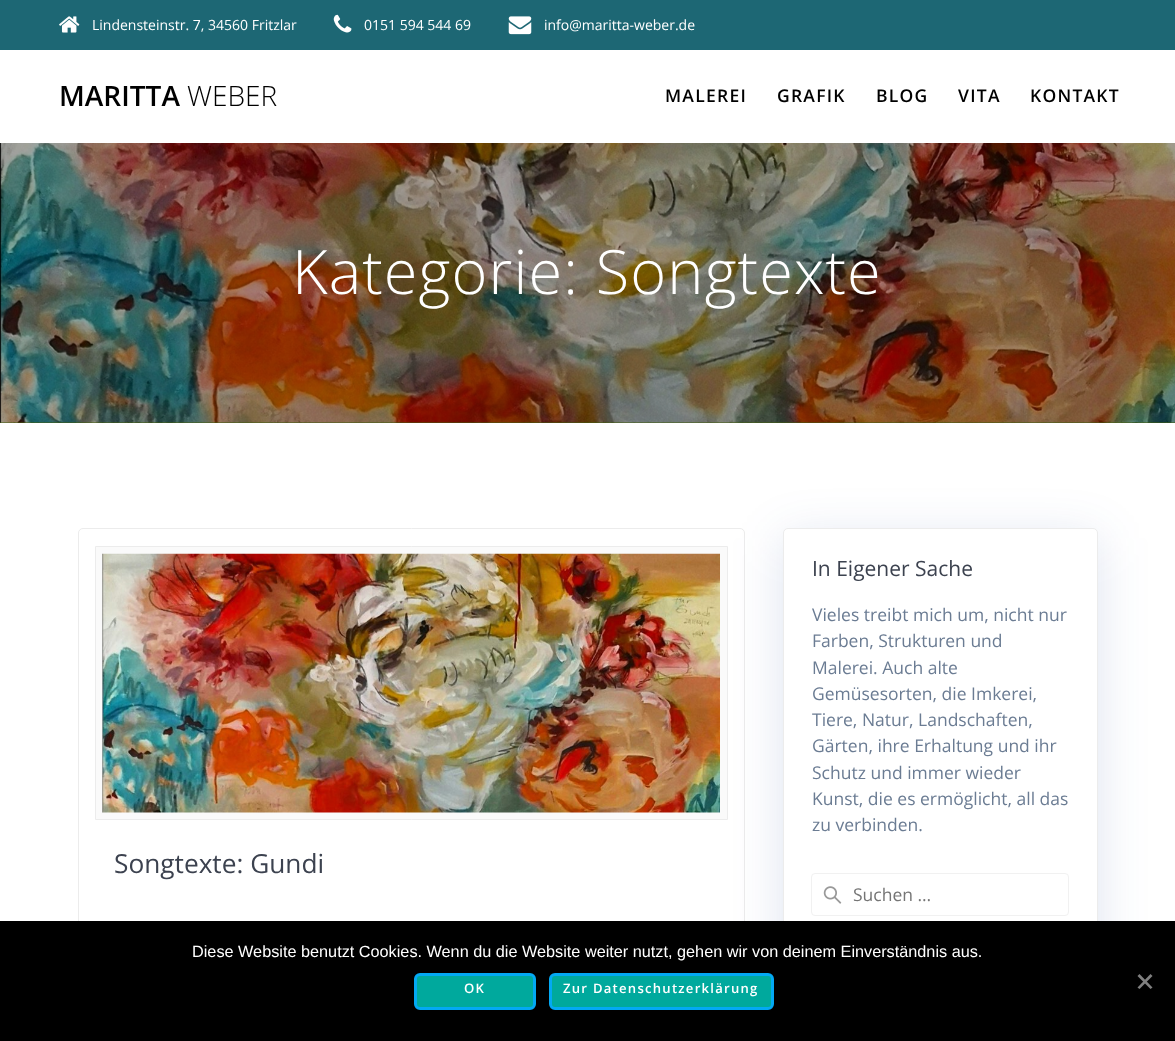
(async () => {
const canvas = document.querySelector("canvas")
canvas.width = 1175
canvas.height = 1041
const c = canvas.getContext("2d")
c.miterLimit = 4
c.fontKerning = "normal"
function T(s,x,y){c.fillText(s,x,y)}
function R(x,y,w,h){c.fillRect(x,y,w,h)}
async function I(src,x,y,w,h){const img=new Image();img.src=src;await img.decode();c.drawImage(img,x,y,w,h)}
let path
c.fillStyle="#fff"
R(0,0,1175,1041)
c.fillStyle="#1d6774"
R(0,0,1175,50)
await I("1.png",59,16,21,17)
c.font="14px Open Sans"
c.fillStyle="#fff"
T("Lindensteinstr. 7, 34560 Fritzlar",92,30)
await I("2.png",333,14,19,19)
T("0151 594 544 69",364,30)
await I("3.png",508,16,24,19)
T("info@maritta-weber.de",544,30)
c.font="600 28px Open Sans"
c.fillStyle="#000"
T("MARITTA",59,106)
c.font="300 28px Open Sans"
T("WEBER",187,106)
c.letterSpacing="1.25px"
c.font="600 17.5px Open Sans"
T("MALEREI",665,102)
T("GRAFIK",777,102)
T("BLOG",876,102)
T("VITA",958,102)
T("KONTAKT",1030,102)
c.fillStyle="#405c0f"
R(0,422,1175,1)
await I("4.png",0,143,1175,280)
c.letterSpacing="1.1px"
c.font="300 61.25px Open Sans"
c.fillStyle="#fff"
T("Kategorie: Songtexte",292,294)
c.beginPath()
c.roundRect(78.5,528.5,666,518,4.5)
c.strokeStyle="#ececec"
c.stroke()
c.fillStyle="#fafafa"
c.beginPath()
c.rect(95.5,546.5,632,273)
c.fill()
c.stroke()
await I("5.png",102,553,618,260)
c.letterSpacing="0px"
c.font="26.25px Open Sans"
c.fillStyle="#3c424f"
T("Songtexte: Gundi",114,873)
c.fillStyle="#23459826"
c.filter="blur(24.5px)"
c.beginPath()
c.roundRect(783,538,315,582,5)
c.fill()
c.filter="none"
c.fillStyle="#fff"
c.beginPath()
c.roundRect(783.5,528.5,314,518,4.5)
c.fill()
c.stroke()
c.font="21px Open Sans"
c.fillStyle="#3c424f"
T("In Eigener Sache",812,576)
c.font="17.5px Open Sans"
c.fillStyle="#6b7c93"
T("Vieles treibt mich um, nicht nur",812,621)
T("Farben, Strukturen und",812,647)
T("Malerei. Auch alte",812,674)
T("Gemüsesorten, die Imkerei,",812,700)
T("Tiere, Natur, Landschaften,",812,726)
T("Gärten, ihre Erhaltung und ihr",812,752)
T("Schutz und immer wieder",812,779)
T("Kunst, die es ermöglicht, all das",812,805)
T("zu verbinden.",812,831)
await I("6.png",823,886,19,18)
c.beginPath()
c.roundRect(811.5,873.5,257,42,3.5)
c.strokeStyle="#f1f1f1"
c.stroke()
c.fillStyle="#757575"
T("Suchen …",853,901)
c.fillStyle="#000"
R(0,921,1175,120)
c.font="16.25px Liberation Sans"
c.fillStyle="#fff"
T("Diese Website benutzt Cookies. Wenn du die Website weiter nutzt, gehen wir von deinem Einverständnis aus.",192,957)
c.fillStyle="#00a99d"
c.beginPath()
c.roundRect(415.5,974.5,119,34,4.5)
c.fill()
c.strokeStyle="#03a9f4"
c.lineWidth=3
c.stroke()
c.letterSpacing="1.25px"
c.font="600 13.1px Open Sans"
c.fillStyle="#fff"
T("OK",464,993)
c.fillStyle="#00a99d"
c.beginPath()
c.roundRect(550.5,974.5,222,34,4.5)
c.fill()
c.stroke()
c.fillStyle="#fff"
T("Zur Datenschutzerklärung",563,993)
c.fillStyle="#808080"
path = new Path2D("M1150.5 974l2 2l-13 13l-2-1.5z")
c.fill(path)
path = new Path2D("M1137.5 976l2-2l13 13.5l-2 1.5z")
c.fill(path)
})()
